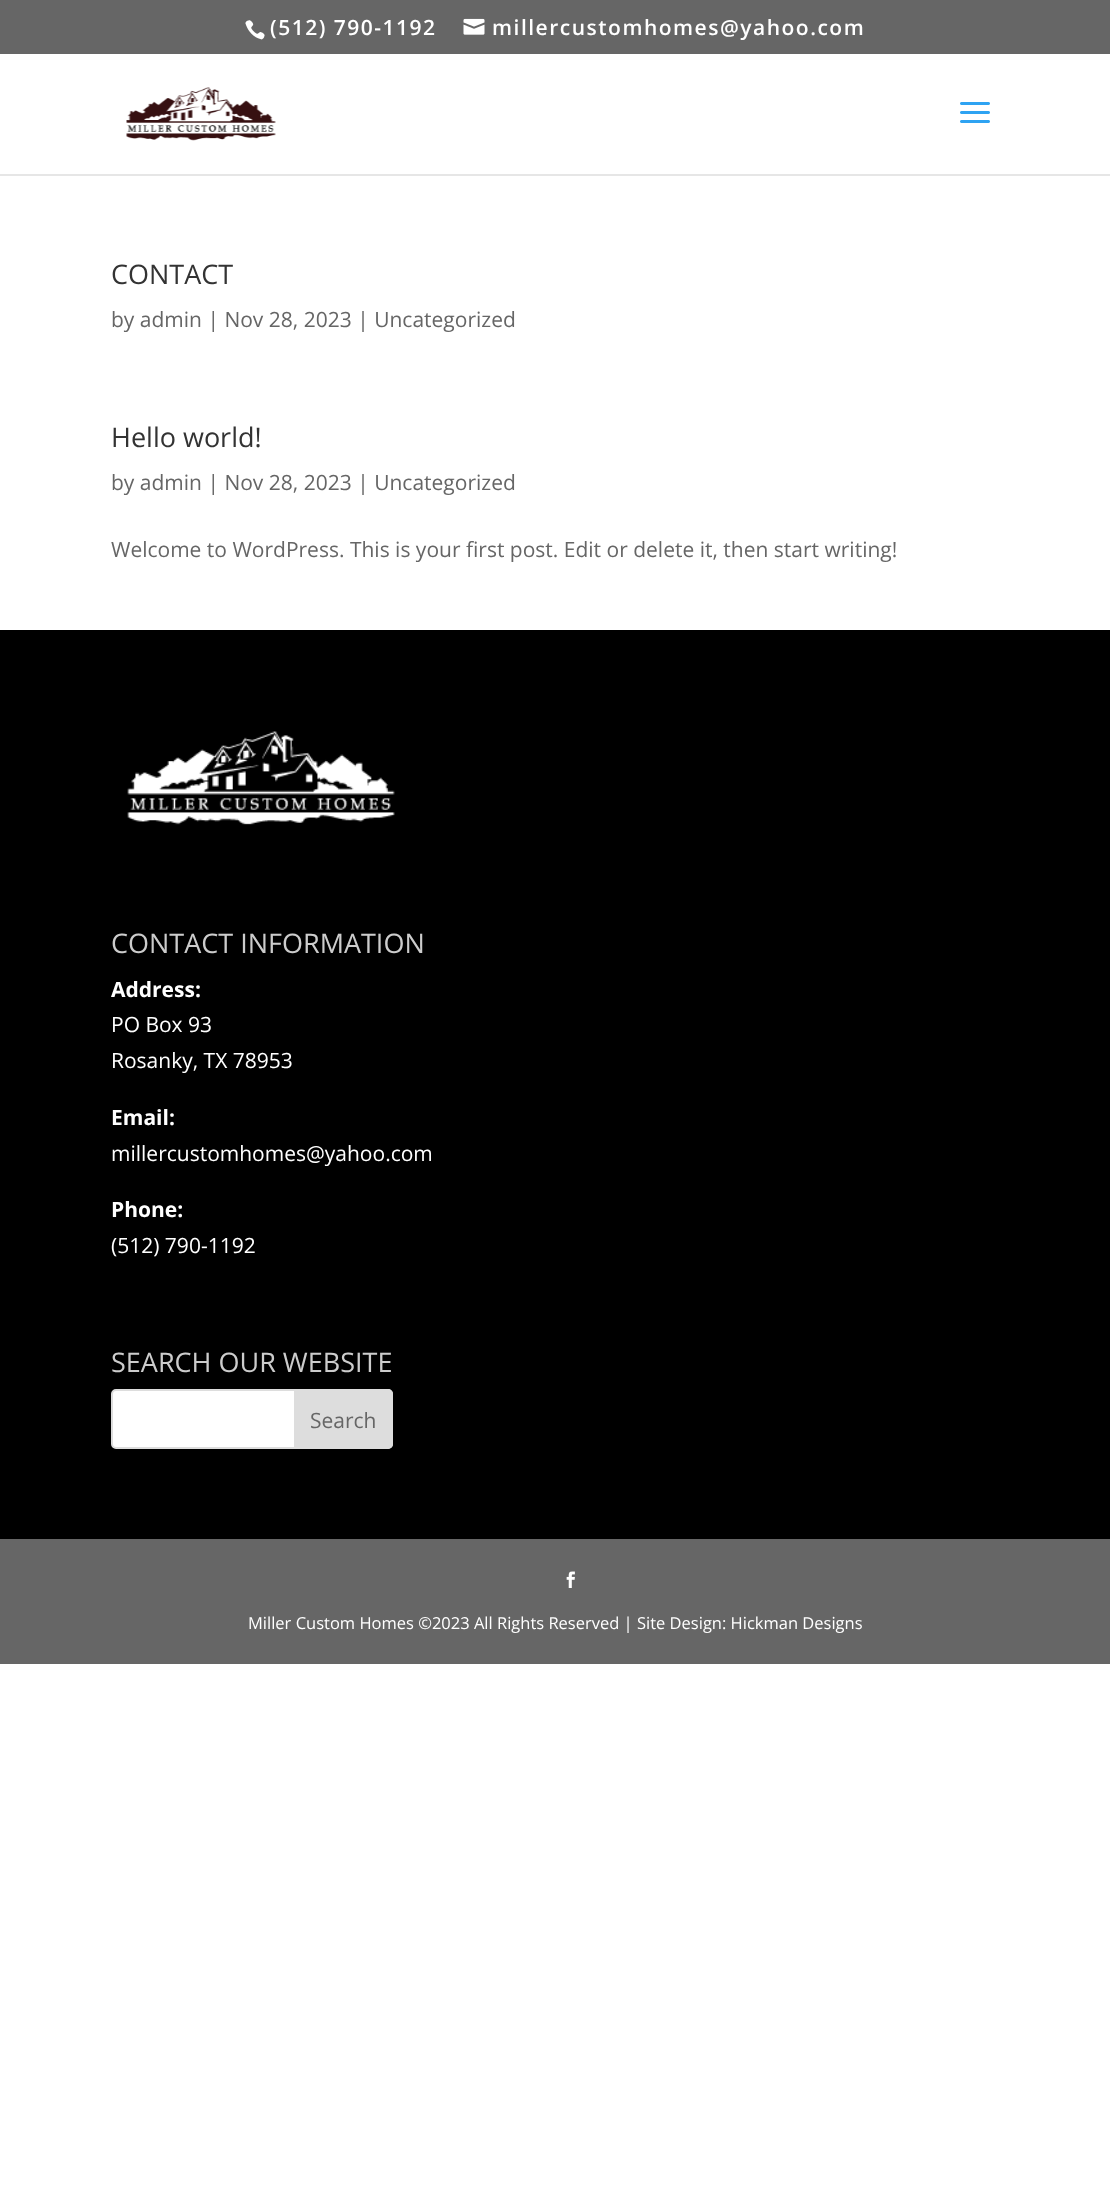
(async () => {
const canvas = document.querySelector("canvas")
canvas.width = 1110
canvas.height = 2186
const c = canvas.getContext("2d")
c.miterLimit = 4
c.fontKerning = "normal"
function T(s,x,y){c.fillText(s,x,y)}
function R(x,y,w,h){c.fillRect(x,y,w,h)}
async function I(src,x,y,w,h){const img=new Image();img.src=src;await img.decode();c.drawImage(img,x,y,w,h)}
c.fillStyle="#fff"
R(0,0,1110,2186)
c.fillStyle="#666"
R(0,0,1110,54)
await I("1.png",245,20,20,20)
c.letterSpacing="1.5px"
c.font="600 21px Open Sans"
c.fillStyle="#fff"
T("(512) 790-1192",270,35)
await I("2.png",463,18,22,17)
T("millercustomhomes@yahoo.com",492,35)
c.fillStyle="#e6e6e6"
R(0,174,1110,2)
await I("3.png",126,87,150,54)
await I("4.png",960,102,30,21)
c.letterSpacing="0px"
c.font="27px Open Sans"
c.fillStyle="#333"
T("CONTACT",111,284)
c.font="21px Open Sans"
c.fillStyle="#666"
T("by admin | Nov 28, 2023 | Uncategorized",111,327)
c.font="27px Open Sans"
c.fillStyle="#333"
T("Hello world!",111,447)
c.font="21px Open Sans"
c.fillStyle="#666"
T("by admin | Nov 28, 2023 | Uncategorized",111,490)
T("Welcome to WordPress. This is your first post. Edit or delete it, then start writing!",111,557)
c.fillStyle="#000"
R(0,630,1110,909)
await I("5.png",127,731,268,94)
c.font="27px Open Sans"
c.fillStyle="#ccc"
T("CONTACT INFORMATION",111,953)
c.font="bold 21px Open Sans"
c.fillStyle="#fff"
T("Address:",111,997)
c.font="21px Open Sans"
T("PO Box 93",111,1032)
T("Rosanky, TX 78953",111,1068)
c.font="bold 21px Open Sans"
T("Email:",111,1125)
c.font="21px Open Sans"
T("millercustomhomes@yahoo.com",111,1161)
c.font="bold 21px Open Sans"
T("Phone:",111,1217)
c.font="21px Open Sans"
T("(512) 790-1192",111,1253)
c.font="27px Open Sans"
c.fillStyle="#ccc"
T("SEARCH OUR WEBSITE",111,1372)
c.fillStyle="#fff"
c.beginPath()
c.roundRect(112,1390,280,58,4)
c.fill()
c.strokeStyle="#ddd"
c.lineWidth=2
c.stroke()
c.fillStyle="#ddd"
c.beginPath()
c.roundRect(295,1390,97,58,[0,4,4,0])
c.fill()
c.stroke()
c.font="21px Open Sans"
c.fillStyle="#666"
T("Search",310,1428)
R(0,1539,1110,125)
await I("6.png",566,1571,9,17)
c.font="16.5px Open Sans"
c.fillStyle="#fff"
T("Miller Custom Homes ©2023 All Rights Reserved | Site Design: Hickman Designs",248,1629)
})()
